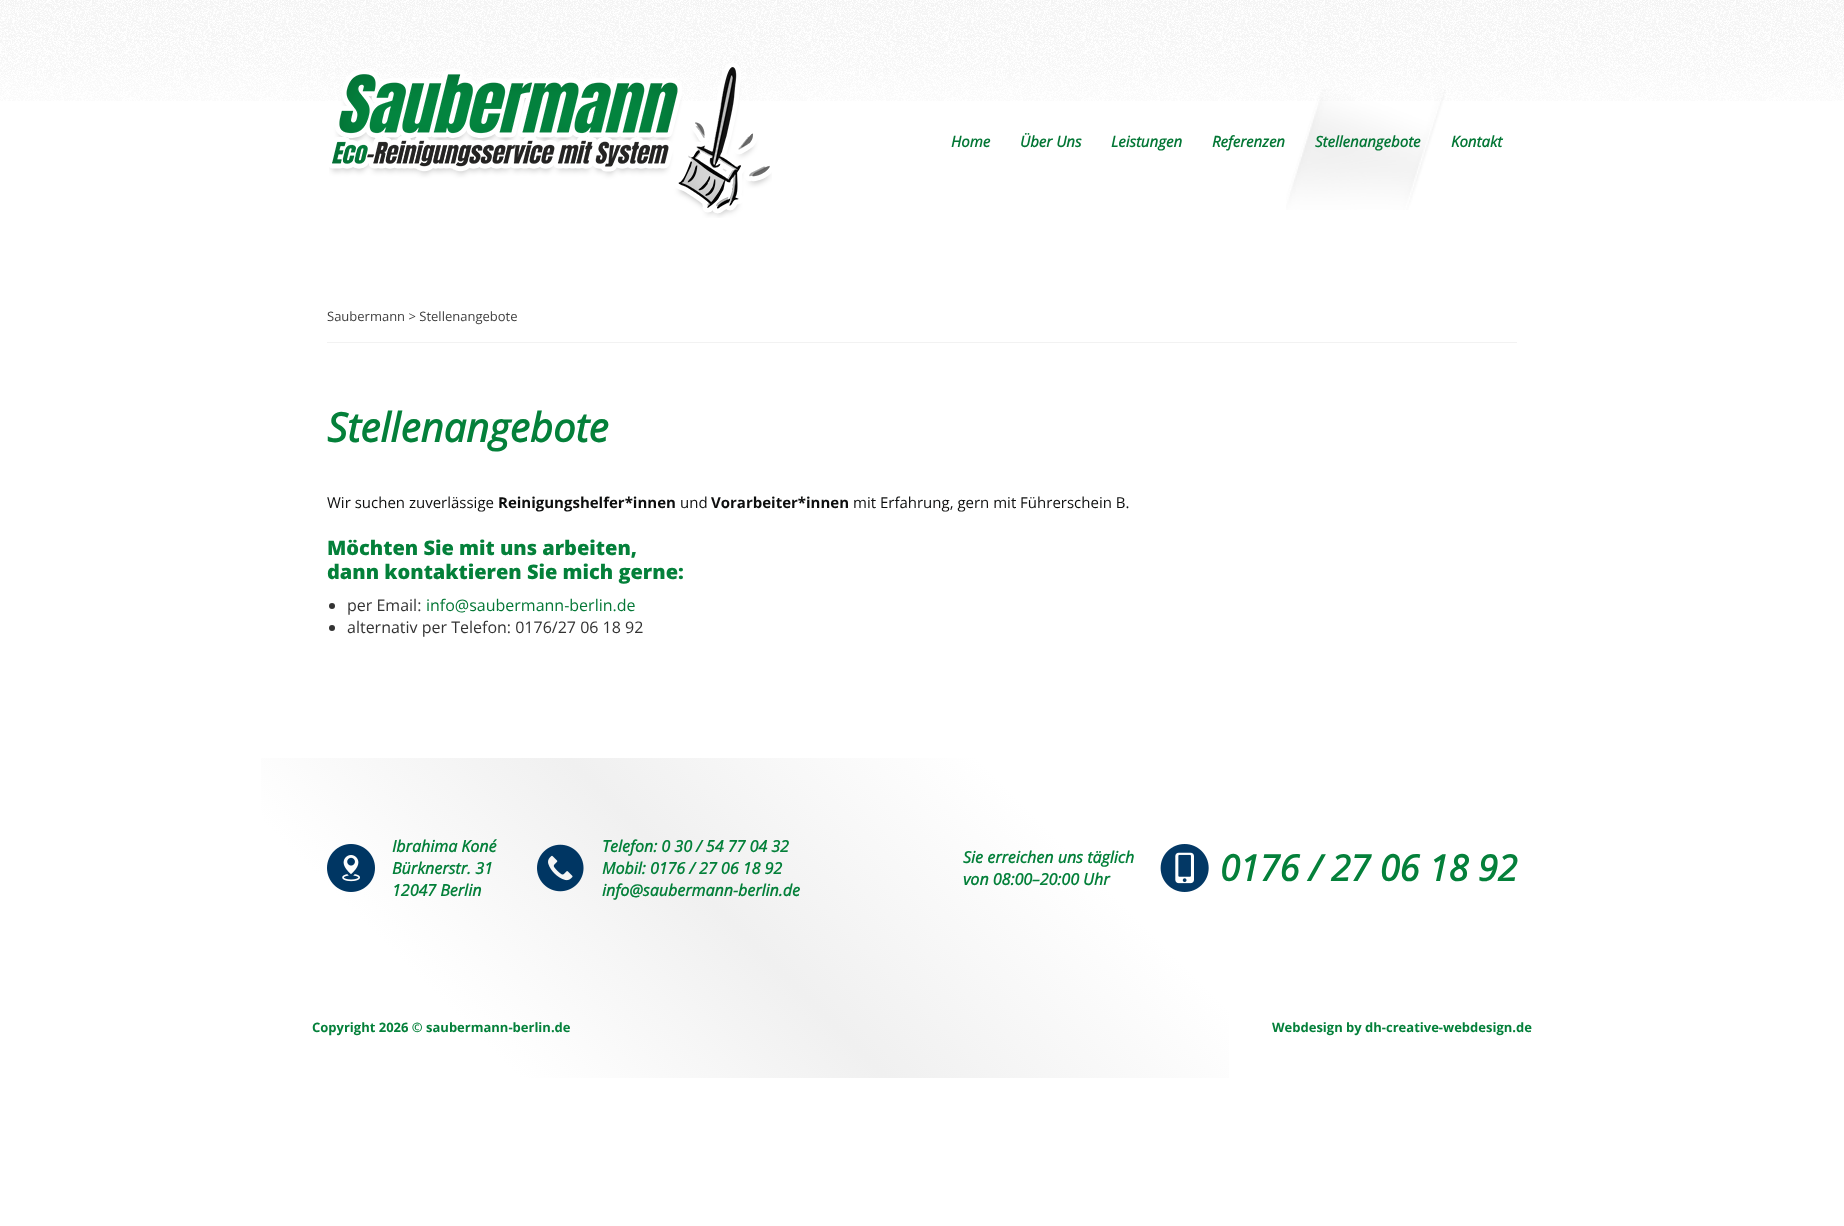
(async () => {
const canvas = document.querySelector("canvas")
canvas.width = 1844
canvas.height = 1226
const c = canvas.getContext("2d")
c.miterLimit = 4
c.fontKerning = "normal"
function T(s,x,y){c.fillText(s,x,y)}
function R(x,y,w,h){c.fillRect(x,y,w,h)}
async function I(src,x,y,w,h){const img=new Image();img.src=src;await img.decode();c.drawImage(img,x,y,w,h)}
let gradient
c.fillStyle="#fff"
R(0,0,1844,1226)
await I("1.png",0,0,1844,101)
await I("2.png",329,63,443,155)
c.font="italic bold 15px Open Sans"
c.fillStyle="#047736"
T("Home",951,147)
T("Über Uns",1020,147)
T("Leistungen",1111,147)
T("Referenzen",1212,147)
await I("3.png",1286,89,160,121)
T("Stellenangebote",1315,147)
T("Kontakt",1451,147)
c.fillStyle="#f2f2f2"
R(327,342,1190,1)
c.font="13px Open Sans"
c.fillStyle="#3f3f3f"
T("Saubermann > Stellenangebote",327,321)
c.font="italic bold 40px Open Sans"
c.fillStyle="#04803a"
T("Stellenangebote",327,442)
c.font="15px Open Sans"
c.fillStyle="#0d0e0e"
T("Wir suchen zuverlässige",327,508)
c.font="bold 15px Open Sans"
T("Reinigungshelfer*innen",498,508)
c.font="15px Open Sans"
T("und",680,508)
c.font="bold 15px Open Sans"
T("Vorarbeiter*innen",711,508)
c.font="15px Open Sans"
T("mit Erfahrung, gern mit Führerschein B.",853,508)
c.font="800 20px Open Sans"
c.fillStyle="#04803a"
T("Möchten Sie mit uns arbeiten,",327,555)
T("dann kontaktieren Sie mich gerne:",327,579)
c.fillStyle="#333"
c.beginPath()
c.arc(332,606,3,0,7)
c.fill()
c.font="16px Open Sans"
T("per Email:",347,611)
c.fillStyle="#047736"
T("info@saubermann-berlin.de",426,611)
c.fillStyle="#333"
c.beginPath()
c.arc(332,628,3,0,7)
c.fill()
T("alternativ per Telefon: 0176/27 06 18 92",347,633)
gradient = c.createLinearGradient(381,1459,1463,377)
gradient.addColorStop(.24,"#fff")
gradient.addColorStop(.41,"#f0f0f0")
gradient.addColorStop(.6,"#fff")
c.fillStyle = gradient
R(261,758,968,320)
await I("4.png",327,844,48,48)
c.font="italic bold 16px Open Sans"
c.fillStyle="#04803a"
T("Ibrahima Koné",392,852)
T("Bürknerstr. 31",392,874)
T("12047 Berlin",392,896)
await I("5.png",537,844,47,48)
T("Telefon: 0 30 / 54 77 04 32",602,852)
T("Mobil: 0176 / 27 06 18 92",602,874)
T("info@saubermann-berlin.de",602,896)
T("Sie erreichen uns täglich",963,863)
T("von 08:00–20:00 Uhr",963,885)
await I("6.png",1160,844,49,48)
c.font="italic bold 36px Open Sans"
T("0176 / 27 06 18 92",1220,881)
c.font="bold 13px Open Sans"
T("Copyright 2026 © saubermann-berlin.de",312,1032)
T("Webdesign by dh-creative-webdesign.de",1272,1032)
})()
